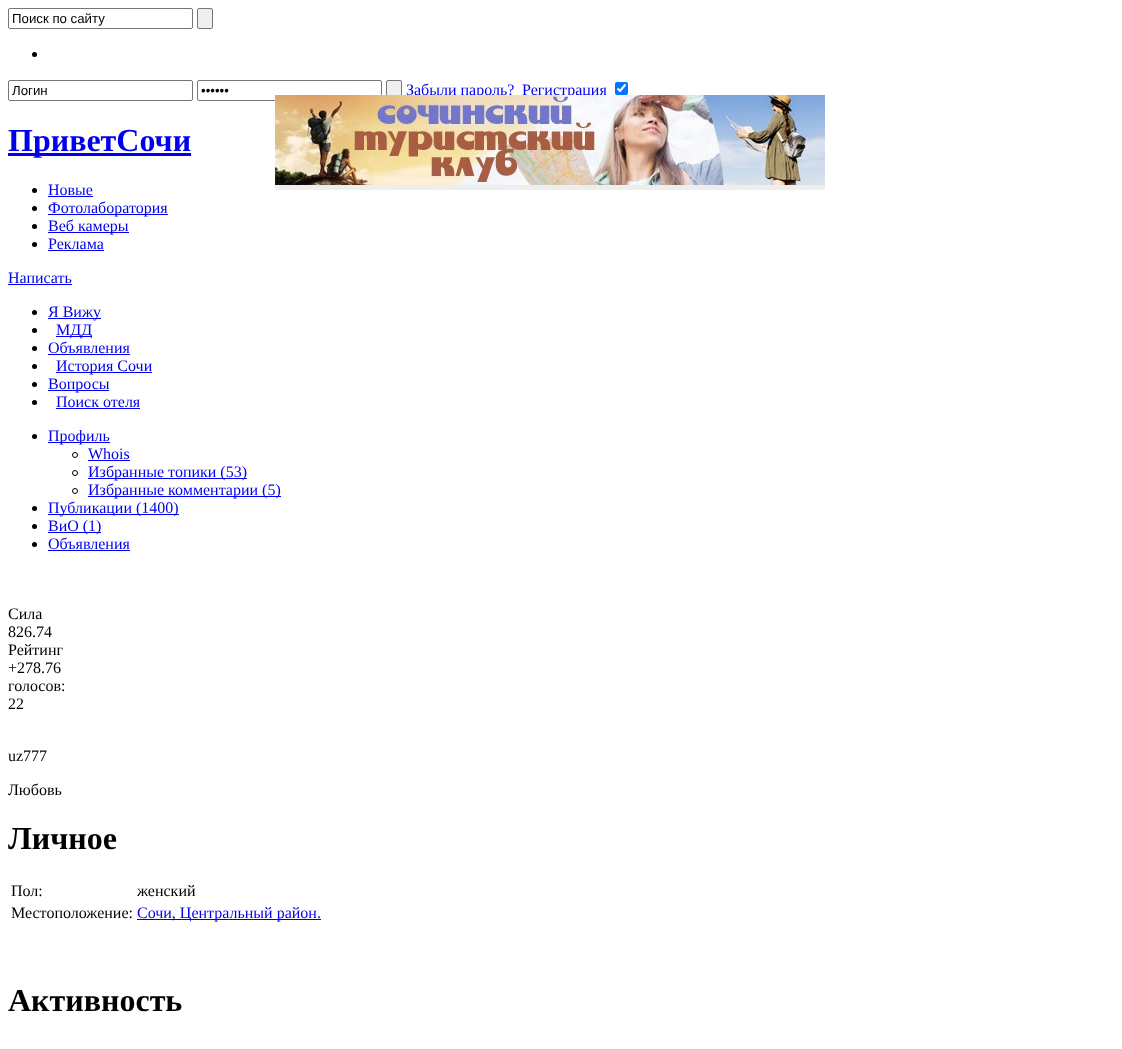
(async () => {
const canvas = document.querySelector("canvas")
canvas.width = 1122
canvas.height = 1049
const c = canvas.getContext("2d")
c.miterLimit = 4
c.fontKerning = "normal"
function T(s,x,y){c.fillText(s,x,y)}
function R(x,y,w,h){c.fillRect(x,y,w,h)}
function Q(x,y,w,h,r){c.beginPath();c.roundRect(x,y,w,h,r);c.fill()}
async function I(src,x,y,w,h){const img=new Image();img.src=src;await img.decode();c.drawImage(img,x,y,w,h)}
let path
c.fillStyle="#fff"
R(0,0,1122,1049)
c.beginPath()
c.roundRect(8.5,8.5,184,20,1.5)
c.strokeStyle="#767676"
c.stroke()
c.font="13.25px Liberation Sans"
c.fillStyle="#000"
T("Поиск по сайту",12,23)
c.fillStyle="#efefef"
c.beginPath()
c.roundRect(197.5,8.5,15,20,1.5)
c.fill()
c.stroke()
c.fillStyle="#000"
c.beginPath()
c.arc(34.5,54.5,2.5,0,7)
c.fill()
c.beginPath()
c.roundRect(8.5,80.5,184,20,1.5)
c.stroke()
T("Логин",12,95)
c.beginPath()
c.roundRect(197.5,80.5,184,20,1.5)
c.stroke()
T("••••••",201,95)
c.fillStyle="#efefef"
c.beginPath()
c.roundRect(386.5,80.5,15,20,1.5)
c.fill()
c.stroke()
c.font="16px Liberation Serif"
c.fillStyle="#00e"
T("Забыли пароль?",406,95)
T("Регистрация",522,95)
c.fillStyle="#0075ff"
Q(615,82,13,13,2)
path = new Path2D("M617.5 88.5l2.5 2.5l5.5-6.5")
c.strokeStyle="#fff"
c.lineWidth=2.1
c.stroke(path)
c.fillStyle="#00e"
R(8,153,183,3)
c.font="bold 32px Liberation Serif"
T("ПриветСочи",8,151)
c.fillStyle="#eee"
R(275,185,550,5)
await I("1.png",275,95,550,90)
c.fillStyle="#000"
c.beginPath()
c.arc(34.5,190.5,2.5,0,7)
c.fill()
c.font="16px Liberation Serif"
c.fillStyle="#00e"
T("Новые",48,195)
R(48,196,45,1)
c.fillStyle="#000"
c.beginPath()
c.arc(34.5,208.5,2.5,0,7)
c.fill()
c.fillStyle="#00e"
R(48,214,120,1)
T("Фотолаборатория",48,213)
c.fillStyle="#000"
c.beginPath()
c.arc(34.5,226.5,2.5,0,7)
c.fill()
c.fillStyle="#00e"
R(48,232,81,1)
T("Веб камеры",48,231)
c.fillStyle="#000"
c.beginPath()
c.arc(34.5,244.5,2.5,0,7)
c.fill()
c.fillStyle="#00e"
T("Реклама",48,249)
R(48,250,56,1)
T("Написать",8,283)
R(8,284,64,1)
c.fillStyle="#000"
c.beginPath()
c.arc(34.5,312.5,2.5,0,7)
c.fill()
c.fillStyle="#00e"
R(48,318,53,1)
T("Я Вижу",48,317)
c.fillStyle="#000"
c.beginPath()
c.arc(34.5,330.5,2.5,0,7)
c.fill()
c.fillStyle="#00e"
R(56,336,36,1)
T("МДД",56,335)
c.fillStyle="#000"
c.beginPath()
c.arc(34.5,348.5,2.5,0,7)
c.fill()
c.fillStyle="#00e"
T("Объявления",48,353)
R(48,354,82,1)
c.fillStyle="#000"
c.beginPath()
c.arc(34.5,366.5,2.5,0,7)
c.fill()
c.fillStyle="#00e"
R(56,372,96,1)
T("История Сочи",56,371)
c.fillStyle="#000"
c.beginPath()
c.arc(34.5,384.5,2.5,0,7)
c.fill()
c.fillStyle="#00e"
R(48,390,61,1)
T("Вопросы",48,389)
c.fillStyle="#000"
c.beginPath()
c.arc(34.5,402.5,2.5,0,7)
c.fill()
c.fillStyle="#00e"
T("Поиск отеля",56,407)
R(56,408,84,1)
c.fillStyle="#000"
c.beginPath()
c.arc(34.5,436.5,2.5,0,7)
c.fill()
c.fillStyle="#00e"
R(48,442,62,1)
T("Профиль",48,441)
c.beginPath()
c.arc(75,455,2.5,0,7)
c.strokeStyle="#000"
c.lineWidth=1
c.stroke()
T("Whois",88,459)
R(88,460,42,1)
c.beginPath()
c.arc(75,473,2.5,0,7)
c.stroke()
R(88,478,159,1)
T("Избранные топики (53)",88,477)
c.beginPath()
c.arc(75,491,2.5,0,7)
c.stroke()
R(88,496,193,1)
T("Избранные комментарии (5)",88,495)
c.fillStyle="#000"
c.beginPath()
c.arc(34.5,508.5,2.5,0,7)
c.fill()
c.fillStyle="#00e"
R(48,514,131,1)
T("Публикации (1400)",48,513)
c.fillStyle="#000"
c.beginPath()
c.arc(34.5,526.5,2.5,0,7)
c.fill()
c.fillStyle="#00e"
R(48,532,53,1)
T("ВиО (1)",48,531)
c.fillStyle="#000"
c.beginPath()
c.arc(34.5,544.5,2.5,0,7)
c.fill()
c.fillStyle="#00e"
T("Объявления",48,549)
R(48,550,82,1)
c.fillStyle="#000"
T("Сила",8,619)
T("826.74",8,637)
T("Рейтинг",8,655)
T("+278.76",8,673)
T("голосов:",8,691)
T("22",8,709)
T("uz777",8,761)
T("Любовь",8,795)
c.font="bold 32px Liberation Serif"
T("Личное",8,849)
c.font="16px Liberation Serif"
T("Пол:",11,896)
T("женский",137,896)
T("Местоположение:",11,918)
c.fillStyle="#00e"
R(137,919,184,1)
T("Сочи, Центральный район.",137,918)
c.font="bold 32px Liberation Serif"
c.fillStyle="#000"
T("Активность",8,1011)
})()
